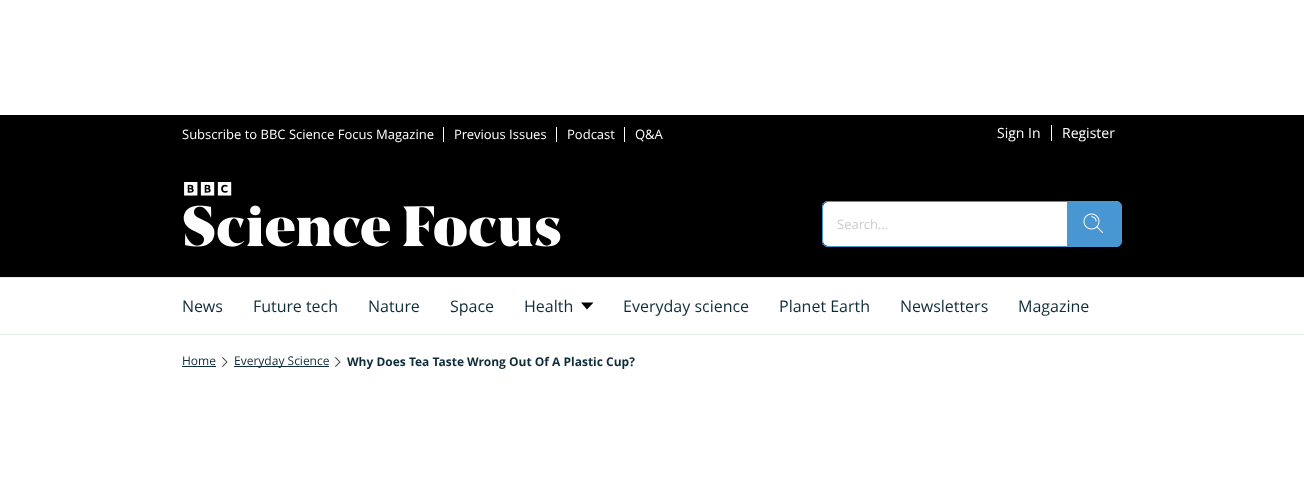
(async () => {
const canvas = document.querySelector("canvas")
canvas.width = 1304
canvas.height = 496
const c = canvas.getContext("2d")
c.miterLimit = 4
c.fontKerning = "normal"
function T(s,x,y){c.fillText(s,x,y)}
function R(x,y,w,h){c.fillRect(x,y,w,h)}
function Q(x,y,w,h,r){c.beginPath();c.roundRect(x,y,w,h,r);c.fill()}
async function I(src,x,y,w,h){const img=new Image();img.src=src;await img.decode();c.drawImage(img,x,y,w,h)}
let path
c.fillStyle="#fff"
R(0,0,1304,496)
c.fillStyle="#000"
R(0,115,1304,162)
c.font="13px Open Sans"
c.fillStyle="#fff"
T("Subscribe to BBC Science Focus Magazine",182,139)
R(443,127,1,15)
T("Previous Issues",454,139)
R(556,127,1,15)
T("Podcast",567,139)
R(624,127,1,15)
T("Q&A",635,139)
c.font="14px 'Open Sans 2'"
T("Sign In",997,138)
R(1051,125,1,16)
T("Register",1062,138)
await I("1.png",183,182,378,65)
c.beginPath()
c.roundRect(822.5,201.5,299,45,4.5)
c.strokeStyle="#4896d2"
c.stroke()
Q(823,202,298,44,5)
c.font="13px Open Sans"
c.fillStyle="#ccc"
T("Search...",837,229)
c.fillStyle="#4896d2"
c.beginPath()
c.roundRect(1067,201,54,46,[0,5,5,0])
c.fill()
await I("2.png",1083,213,21,21)
c.fillStyle="#e2efe4"
R(0,277,1304,1)
R(0,334,1304,1)
c.font="16px Open Sans"
c.fillStyle="#0f2c3b"
T("News",182,312)
T("Future tech",253,312)
T("Nature",368,312)
T("Space",450,312)
T("Health",524,312)
c.fillStyle="#000"
path = new Path2D("M587 309.5l-6-7h12.5z")
c.fill(path)
c.fillStyle="#0f2c3b"
T("Everyday science",623,312)
T("Planet Earth",779,312)
T("Newsletters",900,312)
T("Magazine",1018,312)
c.font="12px Open Sans"
T("Home",182,365)
R(182,366,34,1)
await I("3.png",222,357,6,10)
R(234,366,95,1)
T("Everyday Science",234,365)
await I("3.png",335,357,6,10)
c.font="bold 12px Open Sans"
T("Why Does Tea Taste Wrong Out Of A Plastic Cup?",347,366)
})()
